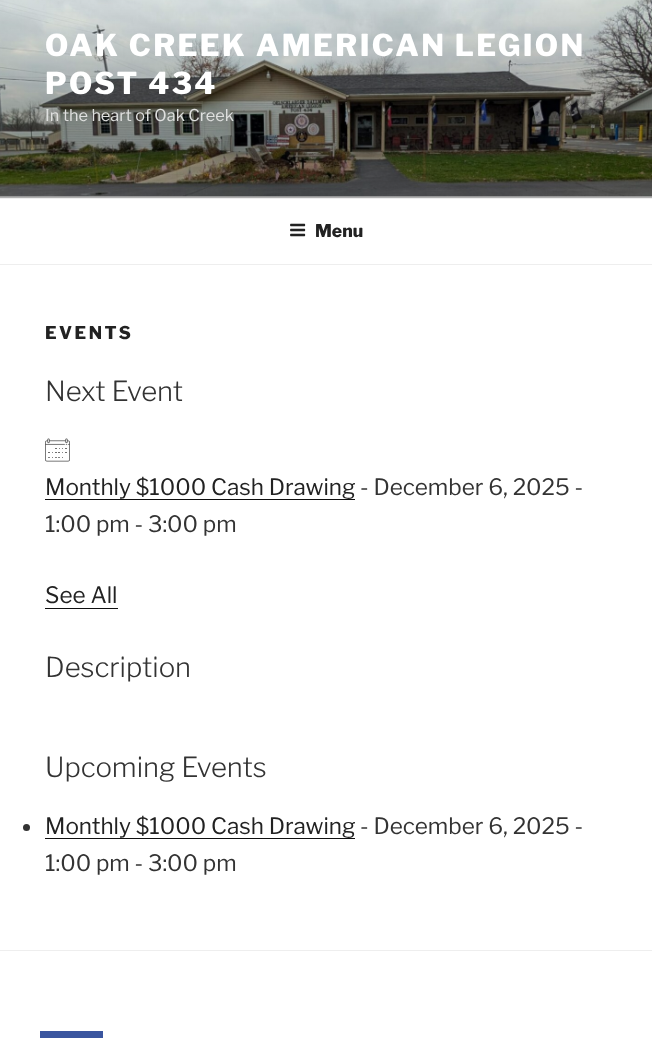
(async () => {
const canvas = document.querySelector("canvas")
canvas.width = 652
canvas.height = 1038
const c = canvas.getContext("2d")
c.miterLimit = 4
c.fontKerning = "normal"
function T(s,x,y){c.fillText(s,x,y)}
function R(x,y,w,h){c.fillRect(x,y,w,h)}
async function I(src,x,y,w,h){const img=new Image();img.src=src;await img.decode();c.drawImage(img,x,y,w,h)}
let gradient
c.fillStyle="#fff"
R(0,0,652,1038)
c.fillStyle="#fafafa"
R(0,196,652,2)
await I("1.png",0,0,652,197)
gradient = c.createLinearGradient(326,-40,326,198)
gradient.addColorStop(0,"#00000000")
gradient.addColorStop(.75,"#0000004d")
gradient.addColorStop(1,"#0000004d")
c.fillStyle = gradient
R(0,0,652,198)
c.letterSpacing="2.4px"
c.font="100 30px Libre Franklin"
c.fillStyle="#fff"
T("OAK CREEK AMERICAN LEGION",45,56)
T("POST 434",45,94)
c.letterSpacing="0px"
c.font="100 16.25px 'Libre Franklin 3'"
c.fillStyle="#dfe0df"
T("In the heart of Oak Creek",45,121)
c.fillStyle="#eee"
R(0,198,652,1)
R(0,264,652,1)
await I("2.png",290,223,16,14)
c.font="100 17.5px Libre Franklin"
c.fillStyle="#222"
T("Menu",315,237)
c.letterSpacing="2.5px"
T("EVENTS",45,339)
c.letterSpacing="0px"
c.font="100 27.5px 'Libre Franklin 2'"
c.fillStyle="#333"
T("Next Event",45,401)
await I("3.png",45,438,25,24)
c.font="100 22.5px 'Libre Franklin 3'"
c.fillStyle="#222"
T("Monthly $1000 Cash Drawing",45,495)
c.fillStyle="#0f0f0f"
R(45,499,310,1)
c.fillStyle="#333"
T("- December 6, 2025 -",360,495)
T("1:00 pm - 3:00 pm",45,532)
c.fillStyle="#222"
T("See All",45,603)
c.fillStyle="#0f0f0f"
R(45,608,73,1)
c.font="100 27.5px 'Libre Franklin 2'"
c.fillStyle="#333"
T("Description",45,677)
T("Upcoming Events",45,777)
c.beginPath()
c.arc(26.5,827.5,3.5,0,7)
c.fill()
c.font="100 22.5px 'Libre Franklin 3'"
c.fillStyle="#222"
T("Monthly $1000 Cash Drawing",45,834)
c.fillStyle="#0f0f0f"
R(45,838,310,1)
c.fillStyle="#333"
T("- December 6, 2025 -",360,834)
T("1:00 pm - 3:00 pm",45,871)
c.fillStyle="#eee"
R(0,950,652,1)
c.fillStyle="#3a559f"
R(40,1031,63,7)
})()
